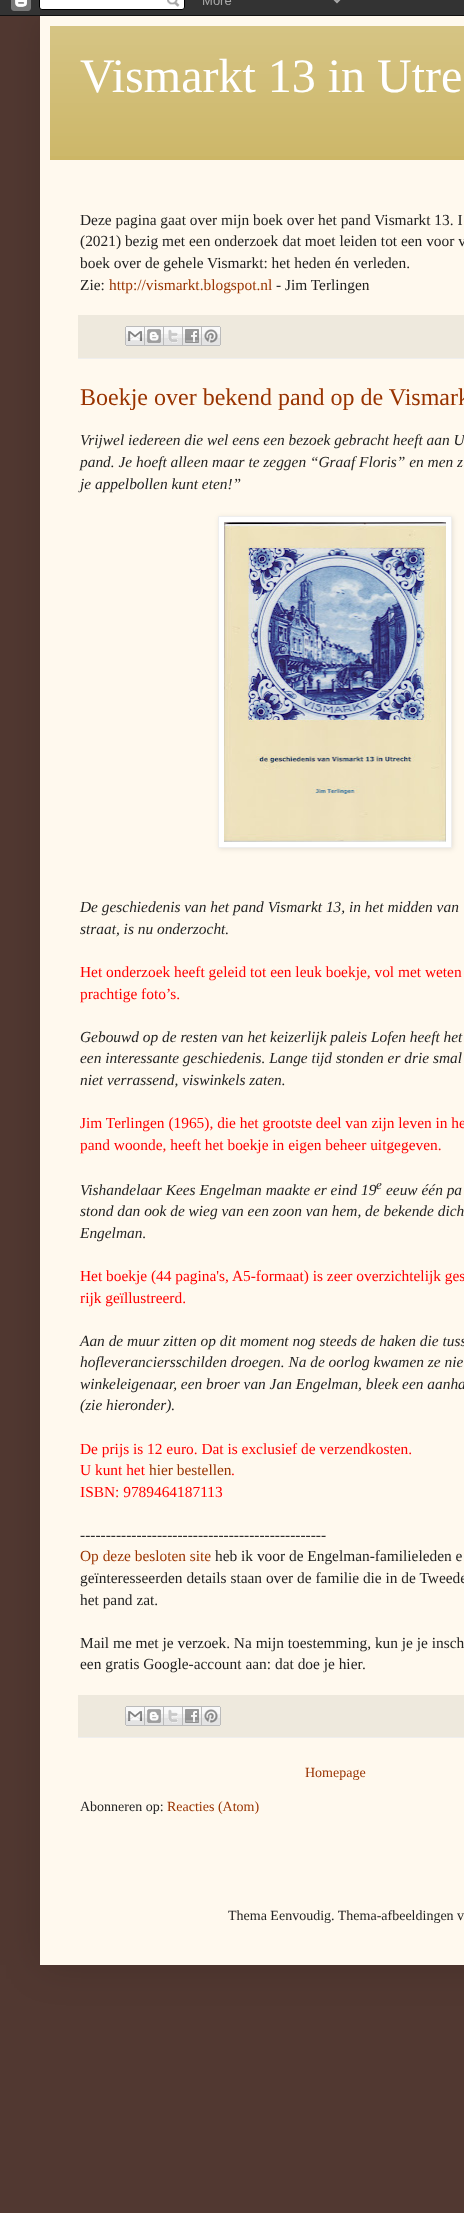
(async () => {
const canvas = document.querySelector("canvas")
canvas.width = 464
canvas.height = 2213
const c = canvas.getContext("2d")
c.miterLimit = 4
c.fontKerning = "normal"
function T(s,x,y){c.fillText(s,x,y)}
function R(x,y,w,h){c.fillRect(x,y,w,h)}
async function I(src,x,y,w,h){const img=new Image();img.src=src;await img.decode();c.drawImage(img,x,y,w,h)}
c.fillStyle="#513831"
R(0,0,464,2213)
c.fillStyle="#00000026"
c.filter="blur(20px)"
c.beginPath()
c.rect(40,16,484,1949)
c.fill()
c.filter="none"
await I("1.png",0,0,464,16)
c.fillStyle="#fff9ee"
R(40,16,424,1949)
c.fillStyle="#ccb666"
R(50,26,414,134)
await I("2.png",50,26,414,130)
c.font="48px Liberation Serif"
c.fillStyle="#fff"
T("Vismarkt 13 in Utre",80,92)
c.font="15.4px Liberation Serif"
c.fillStyle="#222"
T("Deze pagina gaat over mijn boek over het pand Vismarkt 13. I",80,225)
T("(2021) bezig met een onderzoek dat moet leiden tot een voor v",80,246)
T("boek over de gehele Vismarkt: het heden én verleden.",80,268)
T("Zie:",80,290)
c.fillStyle="#930"
T("http://vismarkt.blogspot.nl",109,290)
c.fillStyle="#222"
T("- Jim Terlingen",276,290)
c.fillStyle="#eee9dd"
R(78,315,386,43)
c.fillStyle="#eee"
R(78,358,386,1)
await I("3.png",125,326,20,20)
await I("4.png",145,326,19,20)
await I("5.png",164,326,19,20)
await I("6.png",183,326,19,20)
await I("7.png",202,326,19,20)
c.font="24px Liberation Serif"
c.fillStyle="#930"
T("Boekje over bekend pand op de Vismark",80,405)
c.font="italic 15.4px Liberation Serif"
c.fillStyle="#222"
T("Vrijwel iedereen die wel eens een bezoek gebracht heeft aan U",80,445)
T("pand. Je hoeft alleen maar te zeggen “Graaf Floris” en men z",80,467)
T("je appelbollen kunt eten!”",80,489)
c.fillStyle="#0000001a"
c.filter="blur(2.5px)"
c.beginPath()
c.rect(219,517,234,332)
c.fill()
c.filter="none"
c.fillStyle="#fff"
c.beginPath()
c.rect(218.5,516.5,233,331)
c.fill()
c.strokeStyle="#eee"
c.stroke()
await I("8.png",224,522,222,320)
c.fillStyle="#222"
T("De geschiedenis van het pand Vismarkt 13, in het midden van",80,912)
T("straat, is nu onderzocht.",80,934)
c.font="15.4px Liberation Serif"
c.fillStyle="#f00"
T("Het onderzoek heeft geleid tot een leuk boekje, vol met weten",80,977)
T("prachtige foto’s.",80,999)
c.font="italic 15.4px Liberation Serif"
c.fillStyle="#222"
T("Gebouwd op de resten van het keizerlijk paleis Lofen heeft het",80,1042)
T("een interessante geschiedenis. Lange tijd stonden er drie smal",80,1063)
T("niet verrassend, viswinkels zaten.",80,1085)
c.font="15.4px Liberation Serif"
c.fillStyle="#f00"
T("Jim Terlingen (1965), die het grootste deel van zijn leven in he",80,1128)
T("pand woonde, heeft het boekje in eigen beheer uitgegeven.",80,1150)
c.font="italic 15.4px Liberation Serif"
c.fillStyle="#222"
T("Vishandelaar Kees Engelman maakte er eind 19",80,1195)
c.font="italic 13px Liberation Serif"
T("e",376,1189)
c.font="italic 15.4px Liberation Serif"
T("eeuw één pa",386,1195)
T("stond dan ook de wieg van een zoon van hem, de bekende dich",80,1216)
T("Engelman.",80,1238)
c.font="15.4px Liberation Serif"
c.fillStyle="#f00"
T("Het boekje (44 pagina's, A5-formaat) is zeer overzichtelijk ges",80,1281)
T("rijk geïllustreerd.",80,1303)
c.font="italic 15.4px Liberation Serif"
c.fillStyle="#222"
T("Aan de muur zitten op dit moment nog steeds de haken die tuss",80,1346)
T("hofleveranciersschilden droegen. Na de oorlog kwamen ze nie",80,1367)
T("winkeleigenaar, een broer van Jan Engelman, bleek een aanha",80,1389)
T("(zie hieronder).",80,1410)
c.font="15.4px Liberation Serif"
c.fillStyle="#f00"
T("De prijs is 12 euro. Dat is exclusief de verzendkosten.",80,1454)
T("U kunt het",80,1475)
c.fillStyle="#930"
T("hier bestellen",149,1475)
c.fillStyle="#f00"
T(".",231,1475)
T("ISBN: 9789464187113",80,1497)
c.fillStyle="#222"
T("------------------------------------------------",80,1540)
c.fillStyle="#930"
T("Op deze besloten site",80,1561)
c.fillStyle="#222"
T("heb ik voor de Engelman-familieleden e",215,1561)
T("geïnteresseerden details staan over de familie die in de Tweede",80,1583)
T("het pand zat.",80,1605)
T("Mail me met je verzoek. Na mijn toestemming, kun je je insch",80,1648)
T("een gratis Google-account aan:",80,1669)
T("dat doe je hier",275,1669)
T(".",362,1669)
c.fillStyle="#eee9dd"
R(78,1695,386,42)
c.fillStyle="#eee"
R(78,1737,386,1)
await I("3.png",125,1706,20,20)
await I("4.png",145,1706,19,20)
await I("5.png",164,1706,19,20)
await I("6.png",183,1706,19,20)
await I("7.png",202,1706,19,20)
c.font="14px Liberation Serif"
c.fillStyle="#930"
T("Homepage",305,1777)
c.fillStyle="#222"
T("Abonneren op:",80,1811)
c.fillStyle="#930"
T("Reacties (Atom)",167,1811)
c.fillStyle="#222"
T("Thema Eenvoudig. Thema-afbeeldingen v",228,1920)
})()
